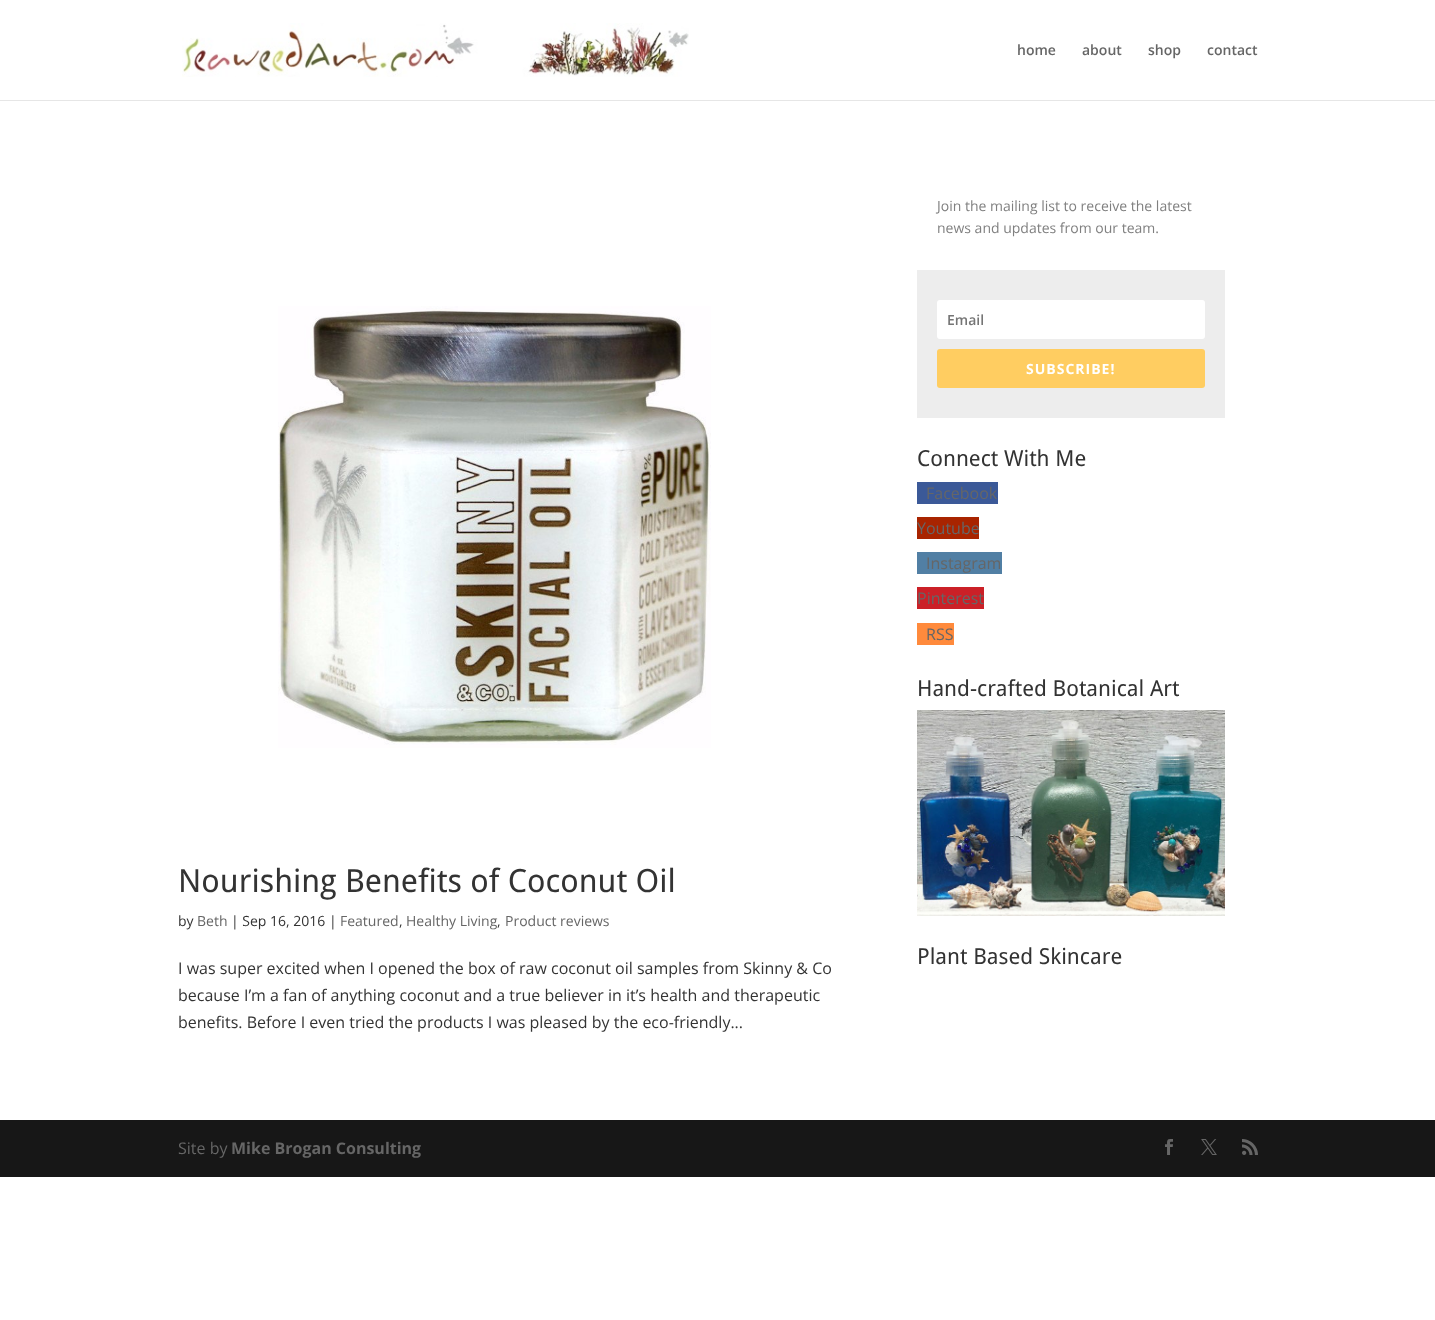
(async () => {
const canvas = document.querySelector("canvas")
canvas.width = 1435
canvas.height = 1320
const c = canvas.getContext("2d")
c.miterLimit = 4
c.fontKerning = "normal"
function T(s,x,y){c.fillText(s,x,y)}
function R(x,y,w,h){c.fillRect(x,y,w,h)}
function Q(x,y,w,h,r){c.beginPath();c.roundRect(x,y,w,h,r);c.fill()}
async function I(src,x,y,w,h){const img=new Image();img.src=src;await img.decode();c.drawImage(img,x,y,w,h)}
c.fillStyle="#fff"
R(0,0,1435,1320)
c.fillStyle="#e6e6e6"
R(0,100,1435,1)
await I("1.png",182,23,507,54)
c.font="600 14px Open Sans"
c.fillStyle="#666"
T("home",1017,55)
T("about",1082,55)
T("shop",1148,55)
T("contact",1207,55)
await I("2.png",278,306,433,442)
c.font="32px Droid Sans"
c.fillStyle="#333"
T("Nourishing Benefits of Coconut Oil",178,892)
c.font="14px Open Sans"
T("by",178,926)
c.fillStyle="#666"
T("Beth",197,926)
c.fillStyle="#333"
T("| Sep 16, 2016 |",231,926)
c.fillStyle="#666"
T("Featured",340,926)
c.fillStyle="#333"
T(",",399,926)
c.fillStyle="#666"
T("Healthy Living",406,926)
c.fillStyle="#333"
T(",",497,926)
c.fillStyle="#666"
T("Product reviews",505,926)
c.font="16px Open Sans"
c.fillStyle="#333"
T("I was super excited when I opened the box of raw coconut oil samples from Skinny & Co",178,974)
T("because I’m a fan of anything coconut and a true believer in it’s health and therapeutic",178,1001)
T("benefits. Before I even tried the products I was pleased by the eco-friendly...",178,1028)
c.font="14px Open Sans"
c.fillStyle="#808080"
T("Join the mailing list to receive the latest",937,211)
T("news and updates from our team.",937,233)
c.fillStyle="#ededed"
R(917,270,308,148)
c.fillStyle="#fff"
Q(937,300,268,39,3)
c.font="600 14px Open Sans"
c.fillStyle="#757575"
T("Email",947,325)
c.fillStyle="#ffcd61"
Q(937,349,268,39,3)
c.letterSpacing="1px"
c.font="bold 14px Open Sans"
c.fillStyle="#fff"
T("SUBSCRIBE!",1026,374)
c.letterSpacing="0px"
c.font="22px Droid Sans"
c.fillStyle="#333"
T("Connect With Me",917,466)
c.fillStyle="#3b5998"
R(917,482,81,22)
c.font="16px Open Sans"
c.fillStyle="#666"
T("Facebook",926,499)
c.fillStyle="#a82400"
R(917,517,62,22)
c.fillStyle="#666"
T("Youtube",917,534)
c.fillStyle="#517fa4"
R(917,552,85,22)
c.fillStyle="#666"
T("Instagram",926,569)
c.fillStyle="#cb2027"
R(917,587,67,22)
c.fillStyle="#666"
T("Pinterest",917,604)
c.fillStyle="#ff8a3c"
R(917,623,37,22)
c.fillStyle="#666"
T("RSS",926,640)
c.font="22px Droid Sans"
c.fillStyle="#333"
T("Hand-crafted Botanical Art",917,696)
await I("3.png",917,710,308,206)
T("Plant Based Skincare",917,964)
c.fillStyle="#171717"
R(0,1120,1435,57)
c.font="16px Open Sans"
c.fillStyle="#666"
T("Site by",178,1154)
c.font="bold 16px Open Sans"
T("Mike Brogan Consulting",231,1154)
await I("4.png",1165,1139,8,16)
await I("5.png",1201,1139,16,16)
await I("6.png",1242,1139,16,16)
})()
